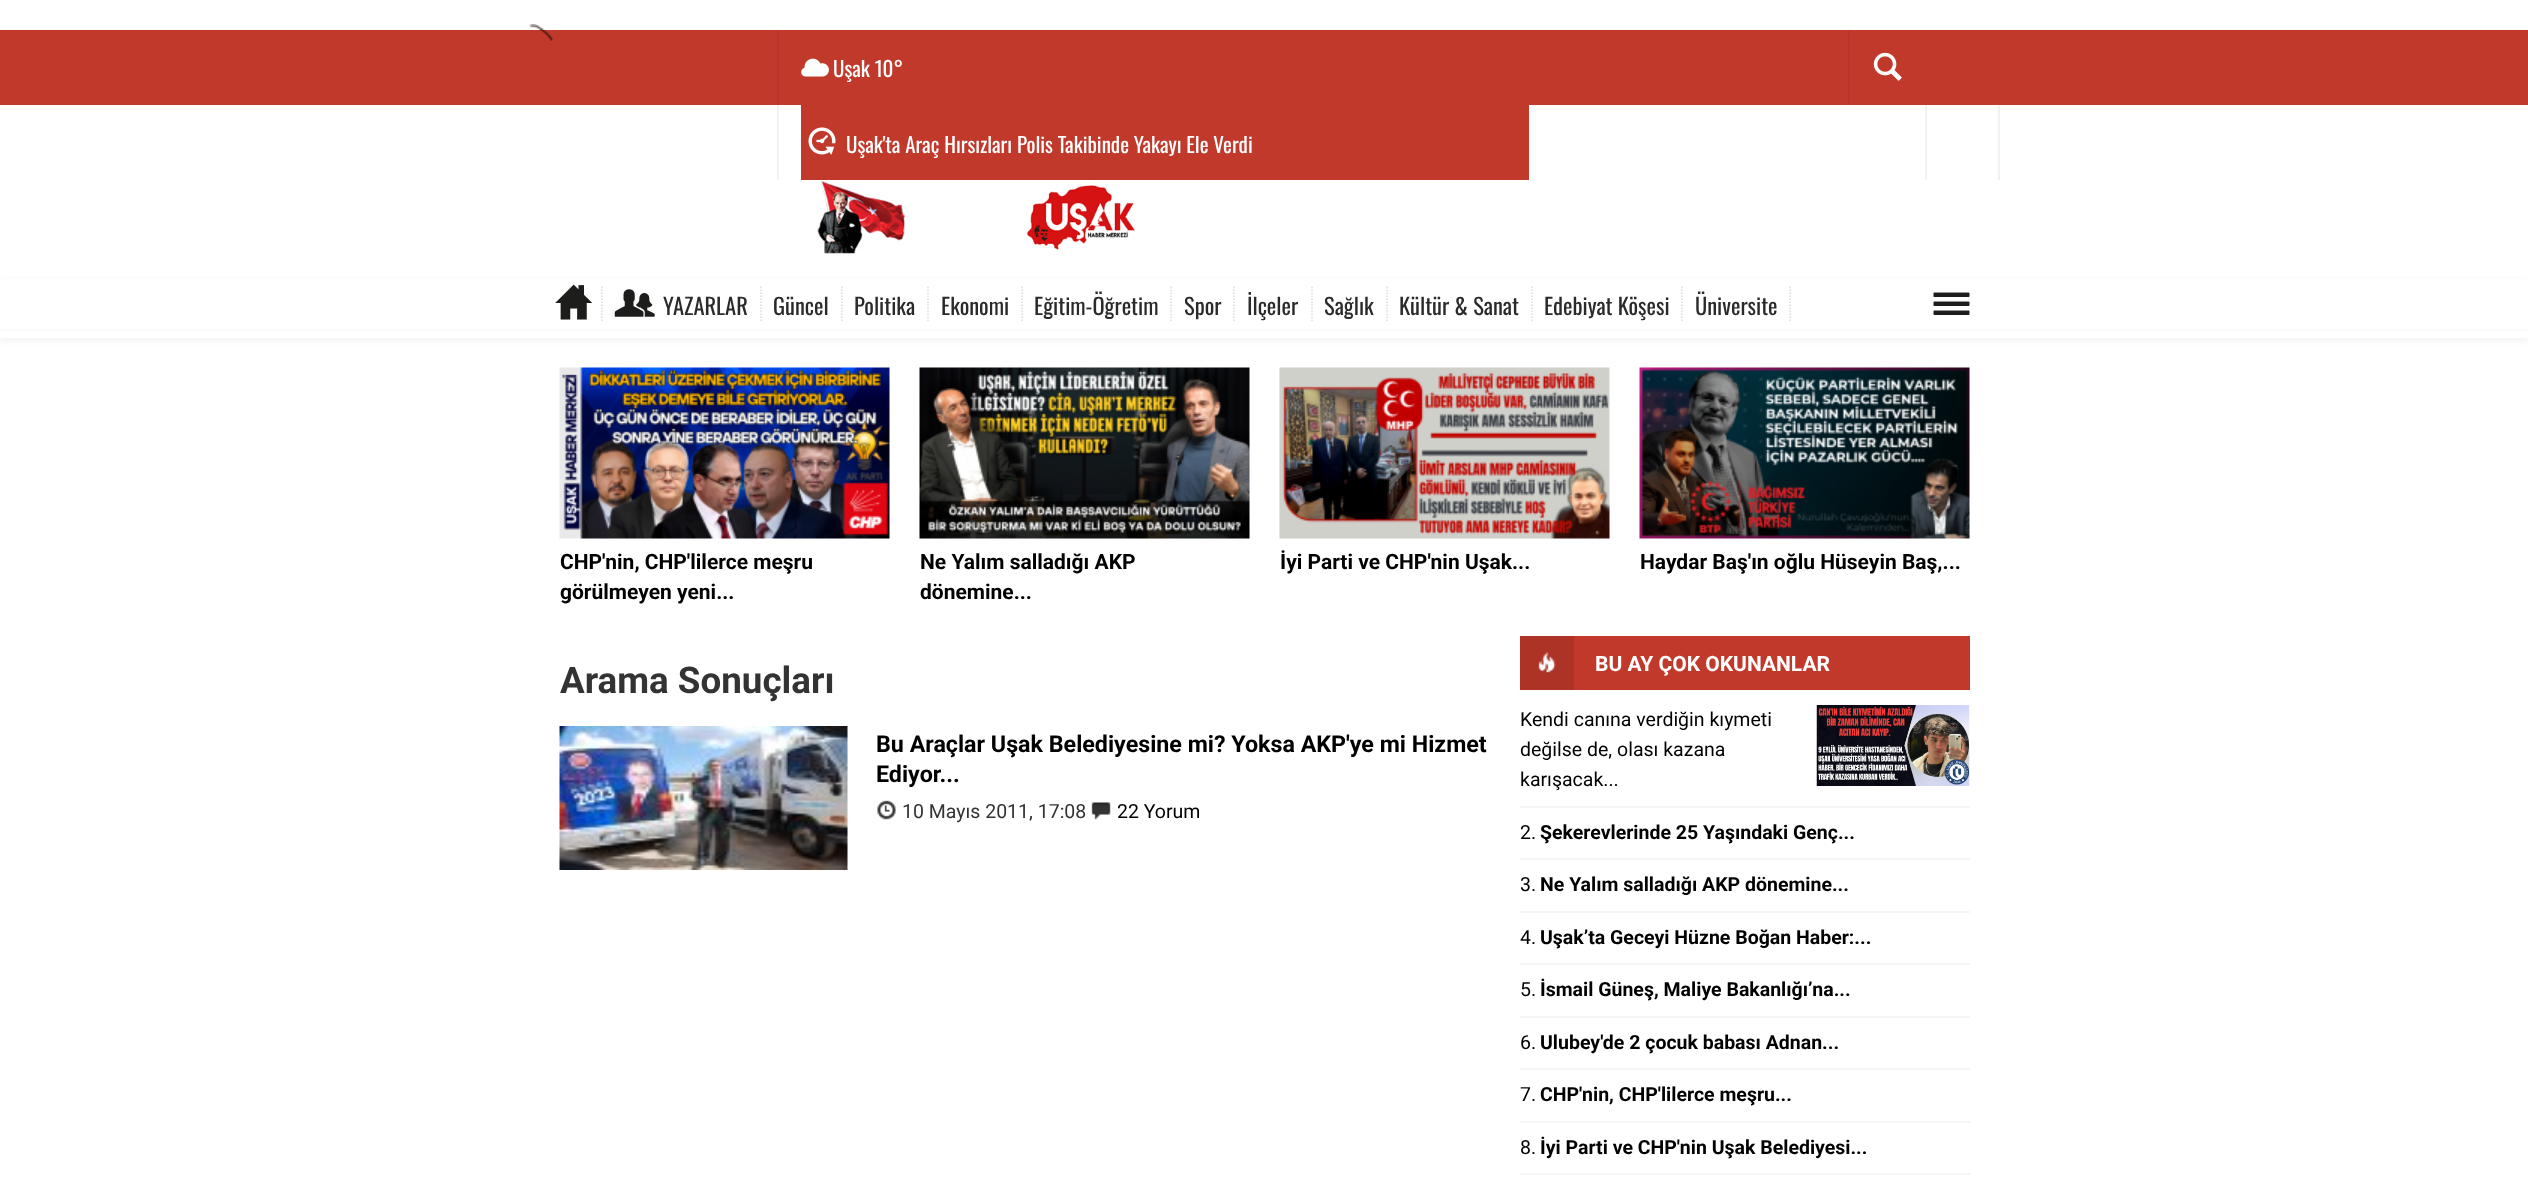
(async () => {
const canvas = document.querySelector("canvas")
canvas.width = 2528
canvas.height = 1183
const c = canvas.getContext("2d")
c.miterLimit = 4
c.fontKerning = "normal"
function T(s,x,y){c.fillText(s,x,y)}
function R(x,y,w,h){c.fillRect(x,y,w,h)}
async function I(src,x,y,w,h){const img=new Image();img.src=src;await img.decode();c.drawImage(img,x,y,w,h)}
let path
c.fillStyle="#fff"
R(0,0,2528,1183)
c.fillStyle="#c0392b"
R(0,30,2528,75)
await I("1.png",529,24,25,17)
c.fillStyle="#b63629"
R(777,30,2,75)
await I("2.png",801,58,28,19)
c.font="21px Oswald"
c.fillStyle="#fff"
T("Uşak 10°",833,77)
c.fillStyle="#b63629"
R(1848,30,2,75)
await I("3.png",1873,52,29,29)
c.fillStyle="#f2f2f2"
R(777,105,2,75)
c.fillStyle="#c0392b"
R(801,105,728,75)
await I("4.png",808,127,28,28)
c.fillStyle="#fff"
T("Uşak'ta Araç Hırsızları Polis Takibinde Yakayı Ele Verdi",846,153)
c.fillStyle="#f2f2f2"
R(1998,105,2,75)
R(1925,105,2,75)
await I("5.png",817,180,318,74)
c.fillStyle="#cccccc40"
c.filter="blur(3px)"
c.beginPath()
c.rect(0,281,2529,60)
c.fill()
c.filter="none"
c.fillStyle="#fff"
R(0,279,2528,59)
c.fillStyle="#fafafa"
R(0,329,2528,2)
path = new Path2D("M602 286.5v36")
c.strokeStyle="#ddd"
c.lineWidth=1.5
c.setLineDash([1.5,1.5])
c.stroke(path)
await I("6.png",555,284,38,36)
path = new Path2D("M761 286.5v36")
c.stroke(path)
await I("7.png",614,289,41,28)
c.font="22.5px Oswald"
c.fillStyle="#2a2a2a"
T("YAZARLAR",663,315)
path = new Path2D("M842 286.5v36")
c.stroke(path)
T("Güncel",773,315)
path = new Path2D("M928 286.5v36")
c.stroke(path)
T("Politika",854,315)
path = new Path2D("M1022 286.5v36")
c.stroke(path)
T("Ekonomi",941,315)
path = new Path2D("M1171 286.5v36")
c.stroke(path)
T("Eğitim-Öğretim",1034,315)
path = new Path2D("M1234 286.5v36")
c.stroke(path)
T("Spor",1184,315)
path = new Path2D("M1312 286.5v36")
c.stroke(path)
T("İlçeler",1247,315)
path = new Path2D("M1387 286.5v36")
c.stroke(path)
T("Sağlık",1324,315)
path = new Path2D("M1532 286.5v36")
c.stroke(path)
T("Kültür & Sanat",1399,315)
path = new Path2D("M1682 286.5v36")
c.stroke(path)
T("Edebiyat Köşesi",1544,315)
path = new Path2D("M1790 286.5v36")
c.stroke(path)
T("Üniversite",1695,315)
await I("8.png",1933,292,37,23)
await I("9.png",559,367,331,172)
c.font="bold 21px Roboto"
c.fillStyle="#000"
T("CHP'nin, CHP'lilerce meşru",560,569)
T("görülmeyen yeni...",560,599)
await I("10.png",919,367,331,172)
T("Ne Yalım salladığı AKP",920,569)
T("dönemine...",920,599)
await I("11.png",1279,367,331,172)
T("İyi Parti ve CHP'nin Uşak...",1280,569)
await I("12.png",1639,367,331,172)
T("Haydar Baş'ın oğlu Hüseyin Baş,...",1640,569)
c.font="bold 36.75px Roboto"
c.fillStyle="#333"
T("Arama Sonuçları",560,693)
await I("13.png",559,726,289,144)
c.font="bold 23.25px Roboto"
c.fillStyle="#000"
T("Bu Araçlar Uşak Belediyesine mi? Yoksa AKP'ye mi Hizmet",876,752)
T("Ediyor...",876,782)
await I("14.png",877,800,19,20)
c.font="19.5px Roboto"
c.fillStyle="#333"
T("10 Mayıs 2011, 17:08",902,818)
await I("15.png",1091,802,20,18)
c.fillStyle="#000"
T("22 Yorum",1117,818)
c.fillStyle="#c0392b"
R(1574,636,396,54)
c.fillStyle="#ad3327"
R(1520,636,54,54)
await I("16.png",1538,652,18,22)
c.font="bold 21px Roboto"
c.fillStyle="#fff"
T("BU AY ÇOK OKUNANLAR",1595,671)
c.fillStyle="#f5f5f5"
R(1520,806,450,2)
c.font="19.5px Roboto"
c.fillStyle="#000"
T("Kendi canına verdiğin kıymeti",1520,726)
T("değilse de, olası kazana",1520,756)
T("karışacak...",1520,786)
await I("17.png",1816,705,154,81)
c.fillStyle="#f5f5f5"
R(1520,858,450,2)
c.fillStyle="#000"
T("2.",1520,839)
c.font="bold 19.5px Roboto"
T("Şekerevlerinde 25 Yaşındaki Genç...",1540,839)
c.fillStyle="#f5f5f5"
R(1520,911,450,2)
c.font="19.5px Roboto"
c.fillStyle="#000"
T("3.",1520,891)
c.font="bold 19.5px Roboto"
T("Ne Yalım salladığı AKP dönemine...",1540,891)
c.fillStyle="#f5f5f5"
R(1520,963,450,2)
c.font="19.5px Roboto"
c.fillStyle="#000"
T("4.",1520,944)
c.font="bold 19.5px Roboto"
T("Uşak’ta Geceyi Hüzne Boğan Haber:...",1540,944)
c.fillStyle="#f5f5f5"
R(1520,1016,450,2)
c.font="19.5px Roboto"
c.fillStyle="#000"
T("5.",1520,996)
c.font="bold 19.5px Roboto"
T("İsmail Güneş, Maliye Bakanlığı’na...",1540,996)
c.fillStyle="#f5f5f5"
R(1520,1068,450,2)
c.font="19.5px Roboto"
c.fillStyle="#000"
T("6.",1520,1049)
c.font="bold 19.5px Roboto"
T("Ulubey'de 2 çocuk babası Adnan...",1540,1049)
c.fillStyle="#f5f5f5"
R(1520,1121,450,2)
c.font="19.5px Roboto"
c.fillStyle="#000"
T("7.",1520,1101)
c.font="bold 19.5px Roboto"
T("CHP'nin, CHP'lilerce meşru...",1540,1101)
c.fillStyle="#f5f5f5"
R(1520,1173,450,2)
c.font="19.5px Roboto"
c.fillStyle="#000"
T("8.",1520,1154)
c.font="bold 19.5px Roboto"
T("İyi Parti ve CHP'nin Uşak Belediyesi...",1540,1154)
})()
